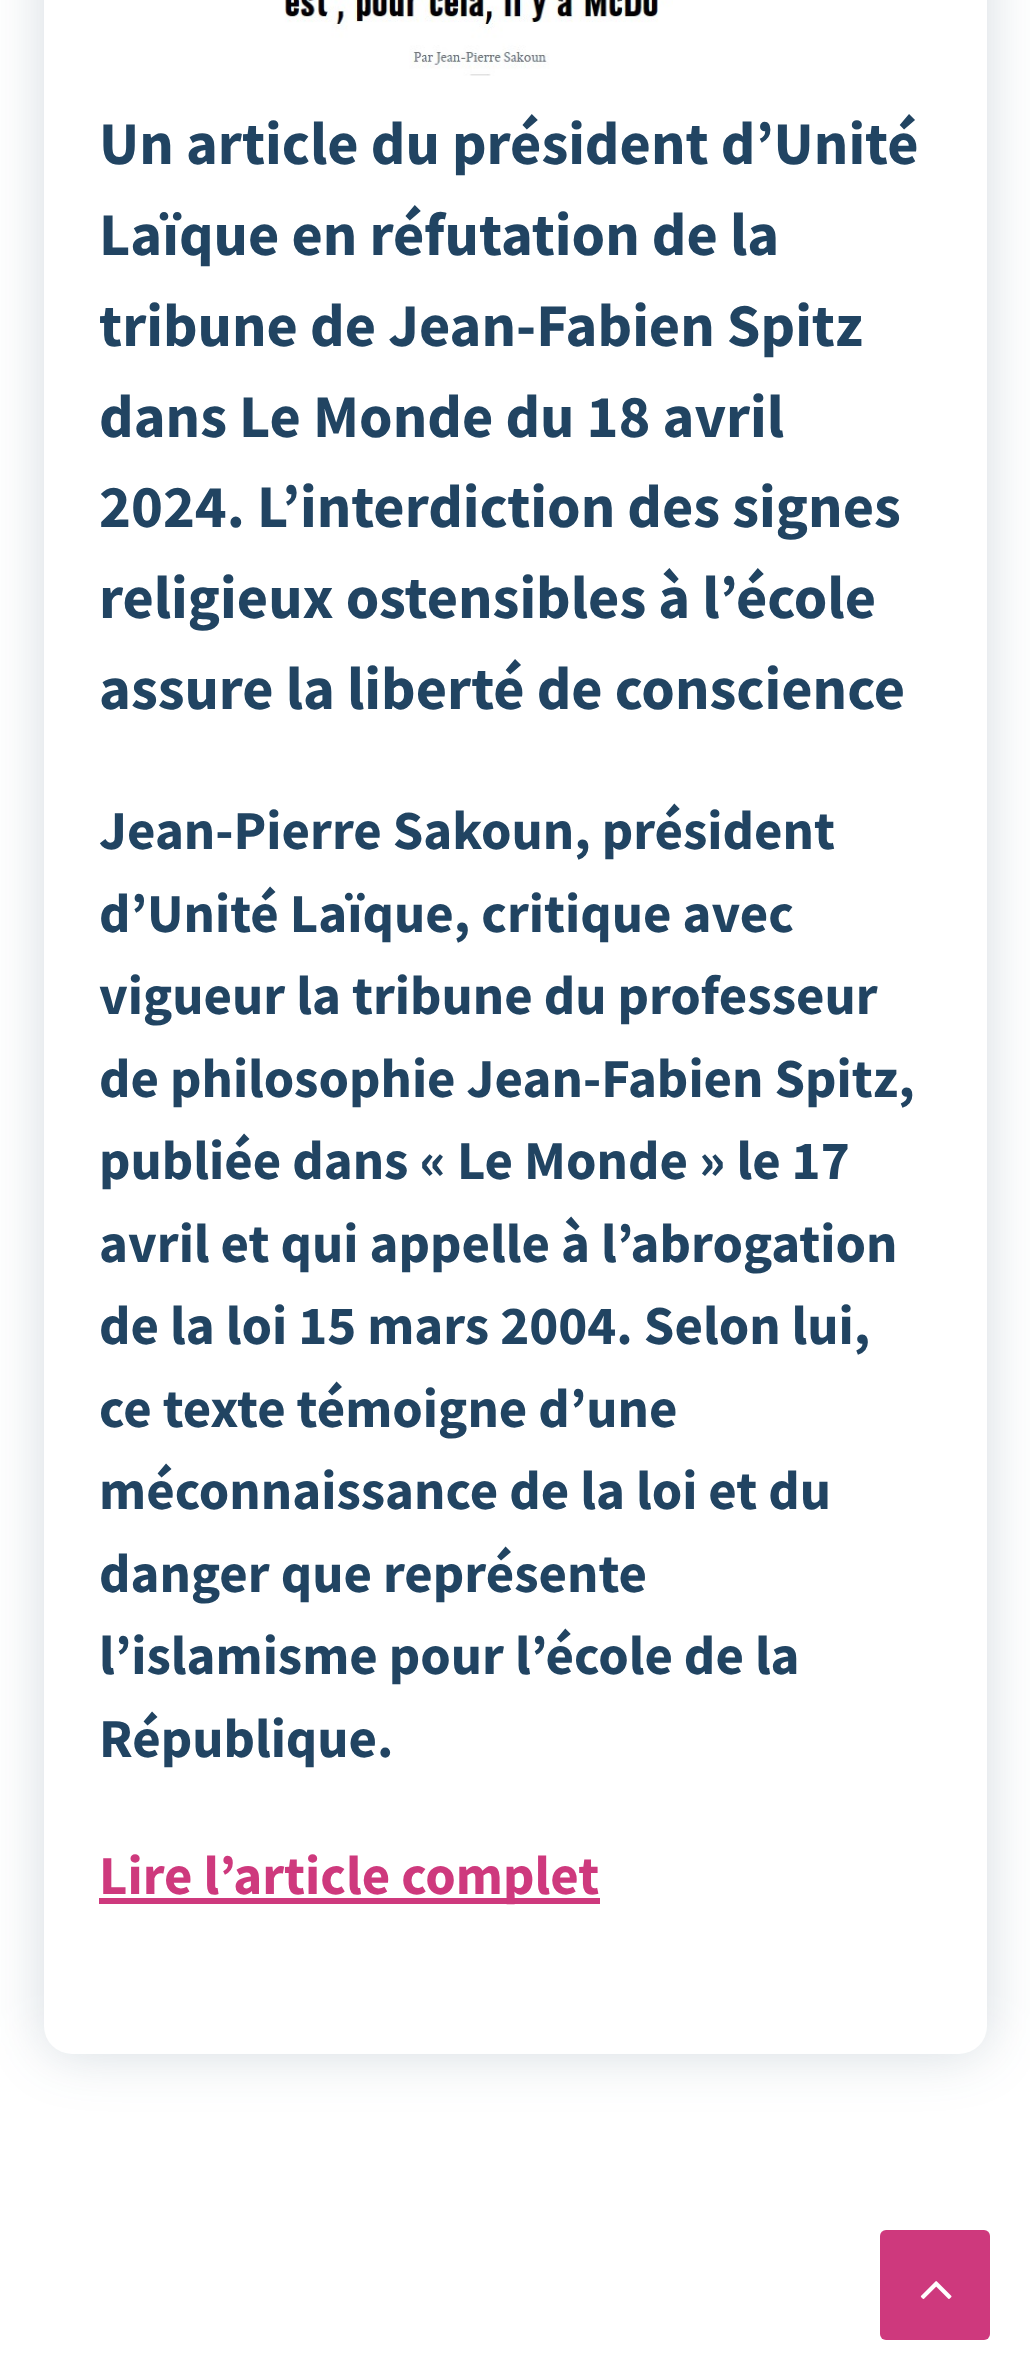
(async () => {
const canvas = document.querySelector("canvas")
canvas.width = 1030
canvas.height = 2379
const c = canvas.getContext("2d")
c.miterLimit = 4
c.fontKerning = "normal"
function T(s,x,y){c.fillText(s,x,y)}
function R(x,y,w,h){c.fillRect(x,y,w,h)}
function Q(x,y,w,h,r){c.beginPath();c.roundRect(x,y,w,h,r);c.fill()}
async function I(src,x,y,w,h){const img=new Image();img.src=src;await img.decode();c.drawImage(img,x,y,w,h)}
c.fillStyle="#fff"
R(0,0,1030,2379)
c.fillStyle="#21446230"
c.filter="blur(27.5px)"
c.beginPath()
c.roundRect(44,-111,943,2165,28)
c.fill()
c.filter="none"
c.fillStyle="#fff"
Q(44,-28,943,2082,28)
await I("1.png",284,0,389,76)
c.font="bold 60.5px Source Sans Pro"
c.fillStyle="#214462"
T("Un article du président d’Unité",99,164)
T("Laïque en réfutation de la",99,255)
T("tribune de Jean-Fabien Spitz",99,346)
T("dans Le Monde du 18 avril",99,437)
T("2024. L’interdiction des signes",99,527)
T("religieux ostensibles à l’école",99,618)
T("assure la liberté de conscience",99,709)
c.font="bold 55px Source Sans Pro"
T("Jean-Pierre Sakoun, président",99,849)
T("d’Unité Laïque, critique avec",99,932)
T("vigueur la tribune du professeur",99,1014)
T("de philosophie Jean-Fabien Spitz,",99,1097)
T("publiée dans « Le Monde » le 17",99,1179)
T("avril et qui appelle à l’abrogation",99,1262)
T("de la loi 15 mars 2004. Selon lui,",99,1344)
T("ce texte témoigne d’une",99,1427)
T("méconnaissance de la loi et du",99,1509)
T("danger que représente",99,1592)
T("l’islamisme pour l’école de la",99,1674)
T("République.",99,1757)
c.fillStyle="#ce397d"
R(99,1898,501,6)
T("Lire l’article complet",99,1894)
Q(880,2230,110,110,6)
await I("2.png",920,2281,32,18)
})()
